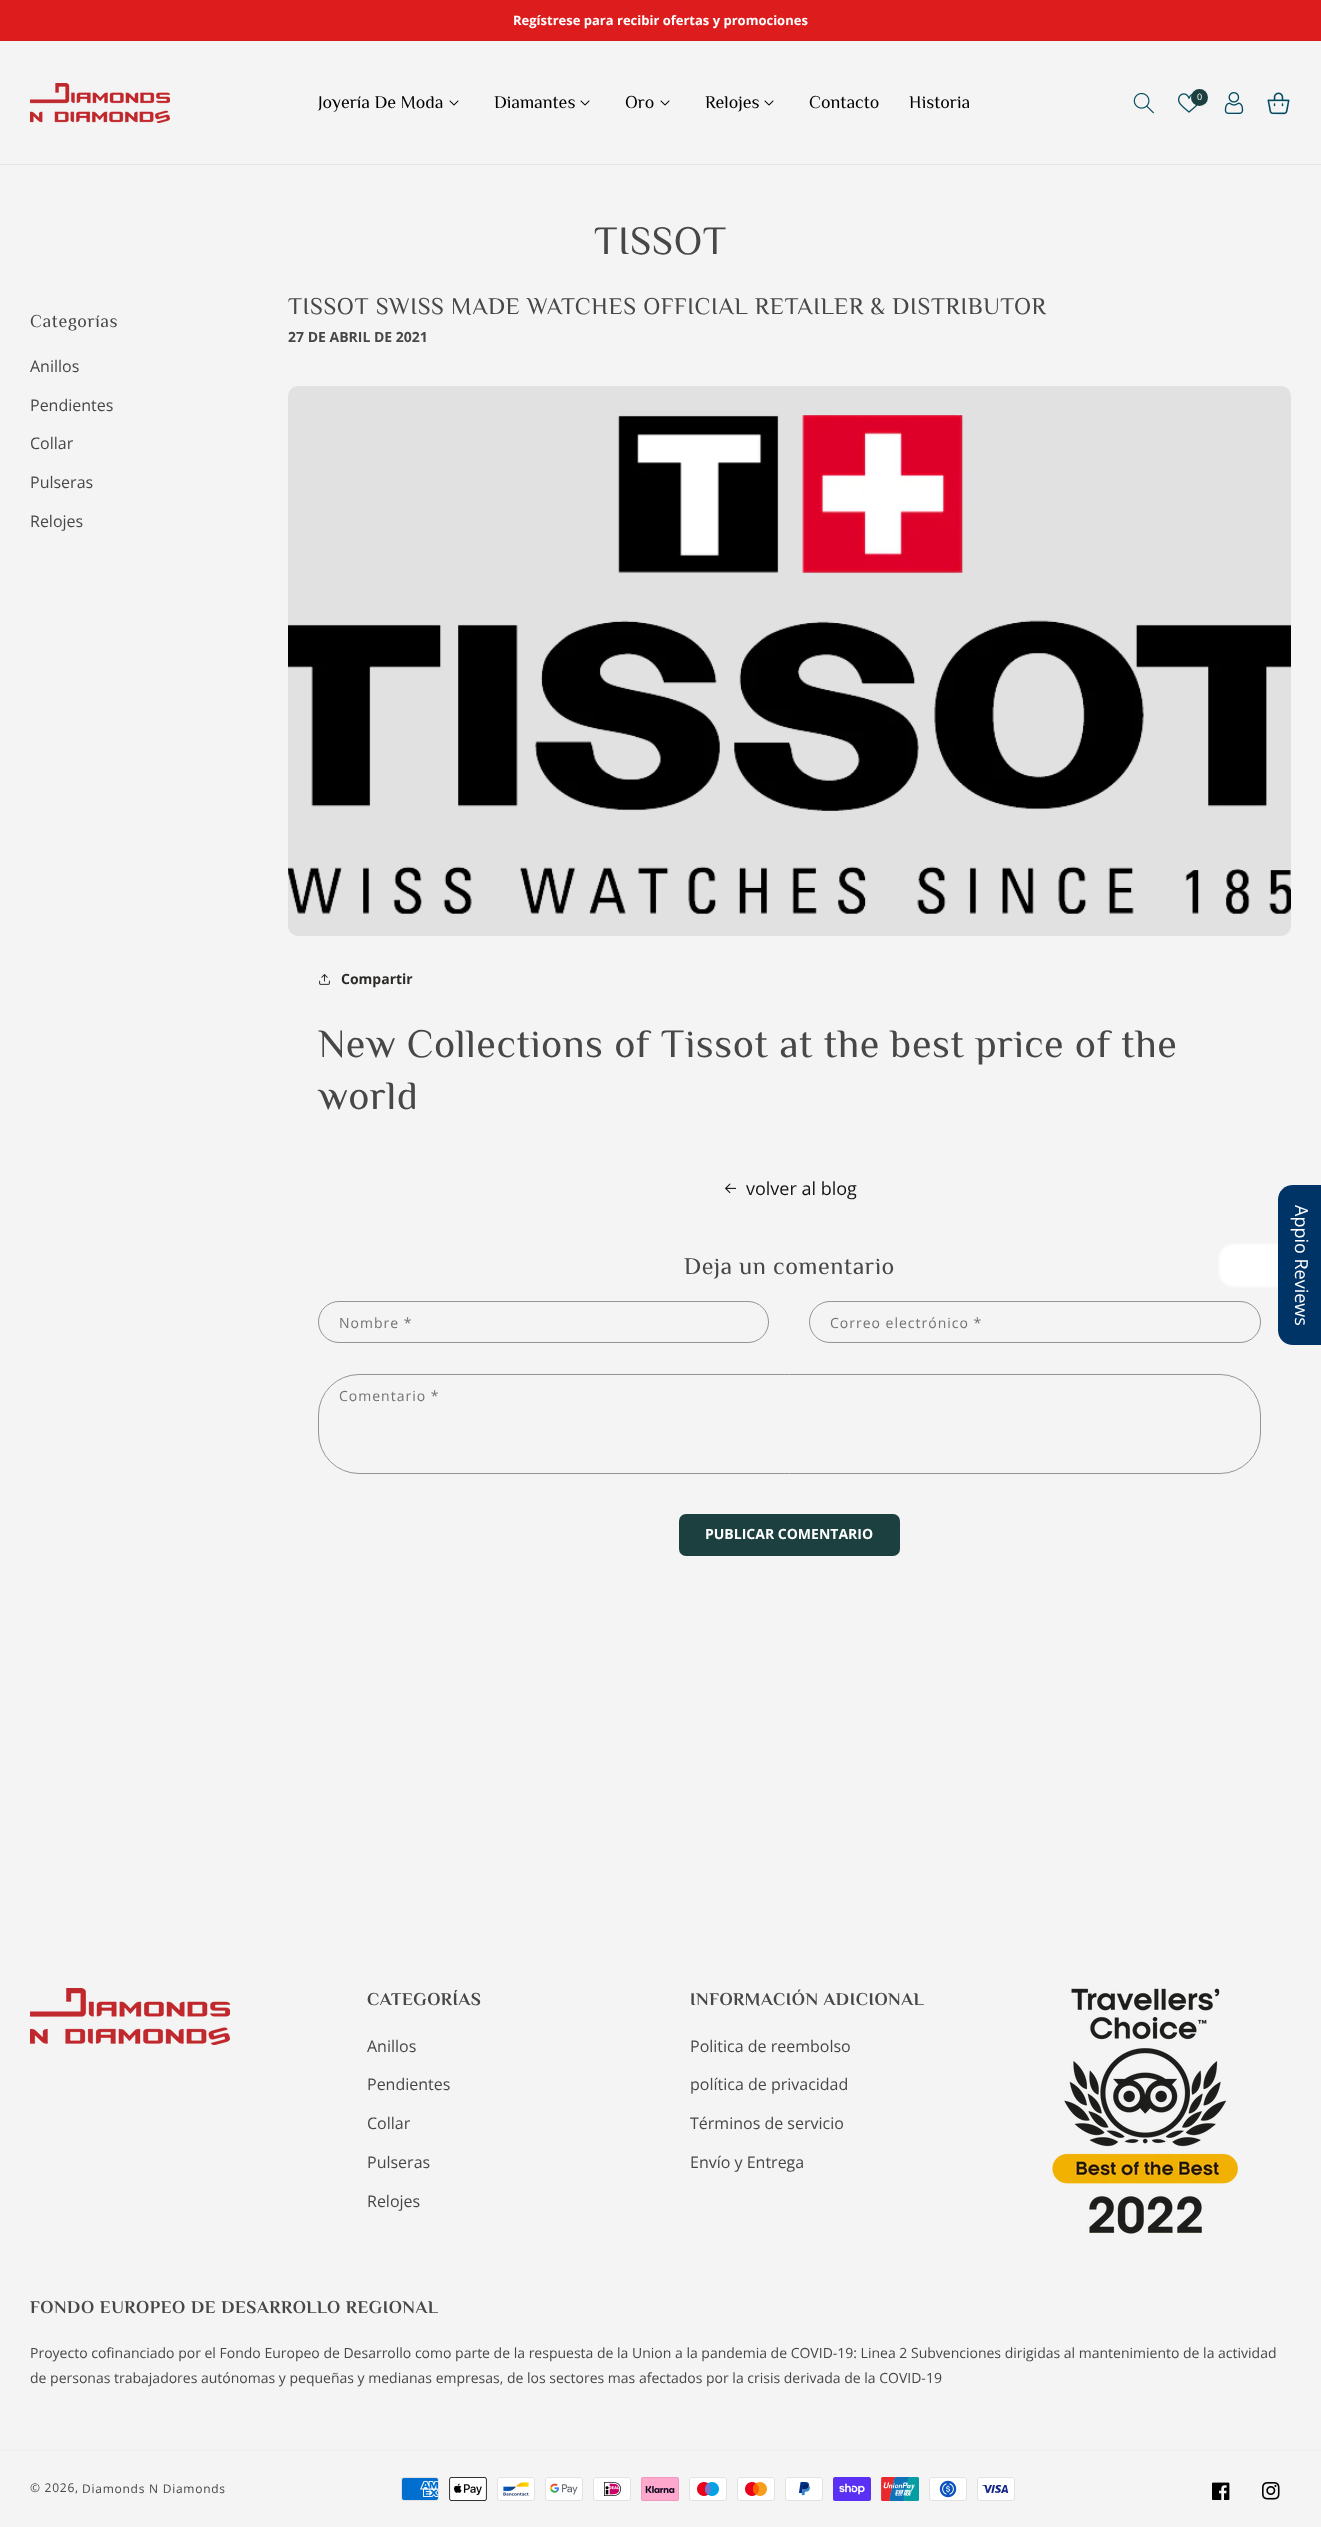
(async () => {
const canvas = document.querySelector("canvas")
canvas.width = 1321
canvas.height = 2527
const c = canvas.getContext("2d")
c.miterLimit = 4
c.fontKerning = "normal"
function T(s,x,y){c.fillText(s,x,y)}
function R(x,y,w,h){c.fillRect(x,y,w,h)}
function Q(x,y,w,h,r){c.beginPath();c.roundRect(x,y,w,h,r);c.fill()}
async function I(src,x,y,w,h){const img=new Image();img.src=src;await img.decode();c.drawImage(img,x,y,w,h)}
let path
c.fillStyle="#f4f4f4"
R(0,0,1321,2527)
c.fillStyle="#dd1d1d"
R(0,0,1321,40)
c.fillStyle="#d12020"
R(0,40,1321,1)
c.font="bold 13px Open Sans"
c.fillStyle="#fff"
T("Regístrese para recibir ofertas y promociones",513,25)
c.fillStyle="#e6e6e6"
R(0,164,1321,1)
await I("1.png",30,83,140,40)
c.font="18px Philosopher"
c.fillStyle="#000"
T("Joyería De Moda",318,108)
await I("2.png",449,100,10,6)
T("Diamantes",494,108)
await I("2.png",580,100,10,6)
T("Oro",625,108)
await I("2.png",660,100,10,6)
T("Relojes",705,108)
await I("2.png",764,100,10,6)
T("Contacto",809,108)
T("Historia",909,108)
await I("3.png",1133,92,21,22)
await I("4.png",1178,93,20,20)
c.fillStyle="#1c3f3f"
c.beginPath()
c.arc(1199.5,97.5,8.5,0,7)
c.fill()
c.font="9px Open Sans"
c.fillStyle="#fff"
T("0",1197,100)
await I("5.png",1224,92,20,22)
await I("6.png",1267,92,23,23)
c.letterSpacing="0.6px"
c.font="40px Philosopher"
c.fillStyle="#474747"
T("TISSOT",594,254)
c.font="18px Philosopher"
T("Categorías",30,327)
c.letterSpacing="0px"
c.font="16px Open Sans"
T("Anillos",30,372)
T("Pendientes",30,411)
T("Collar",30,449)
T("Pulseras",30,488)
T("Relojes",30,527)
c.letterSpacing="0.6px"
c.font="24px Philosopher"
T("TISSOT SWISS MADE WATCHES OFFICIAL RETAILER & DISTRIBUTOR",288,314)
c.letterSpacing="0px"
c.font="bold 14px Open Sans"
T("27 DE ABRIL DE 2021",288,342)
c.fillStyle="#e1e1e1"
Q(288,386,1003,550,10)
await I("7.png",288,415,1003,499)
await I("8.png",319,974,11,11)
c.fillStyle="#2b2a28"
T("Compartir",341,984)
c.letterSpacing="0.6px"
c.font="40px Philosopher"
c.fillStyle="#474747"
T("New Collections of Tissot at the best price of the",318,1057)
T("world",318,1109)
await I("9.png",725,1183,11,11)
c.letterSpacing="0px"
c.font="18px Open Sans"
c.fillStyle="#121212"
T("volver al blog",746,1195)
c.letterSpacing="0.6px"
c.font="24px Philosopher"
c.fillStyle="#474747"
T("Deja un comentario",684,1274)
c.beginPath()
c.roundRect(318.5,1301.5,450,41,20.5)
c.strokeStyle="#959595"
c.stroke()
c.letterSpacing="1px"
c.font="14px Open Sans"
c.fillStyle="#727272"
T("Nombre *",339,1328)
c.beginPath()
c.roundRect(809.5,1301.5,451,41,20.5)
c.stroke()
T("Correo electrónico *",830,1328)
c.beginPath()
c.roundRect(318.5,1374.5,942,99,40.5)
c.stroke()
T("Comentario *",339,1401)
c.fillStyle="#1c3f3f"
Q(679,1514,221,42,7)
c.letterSpacing="0px"
c.font="bold 14px Open Sans"
c.fillStyle="#fff"
T("PUBLICAR COMENTARIO",705,1539)
c.filter="blur(1.5px)"
c.beginPath()
c.roundRect(1219,1244,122,43,15)
c.fill()
c.filter="none"
c.fillStyle="#036"
path = new Path2D("M1321 1185v160h-28c-8 0-15-6-15-15v-130c0-9 7-15 15-15z")
c.fill(path)
c.font="18px Open Sans"
c.fillStyle="#fff"
c.save()
c.translate(1295,1205)
c.rotate(90 * Math.PI / 180)
c.fillText("Appio Reviews",0,0)
c.restore()
await I("10.png",30,1988,200,57)
c.letterSpacing="0.6px"
c.font="bold 18px Philosopher"
c.fillStyle="#474747"
T("CATEGORÍAS",367,2005)
c.letterSpacing="0px"
c.font="16px Open Sans"
T("Anillos",367,2052)
T("Pendientes",367,2090)
T("Collar",367,2129)
T("Pulseras",367,2168)
T("Relojes",367,2207)
c.letterSpacing="0.6px"
c.font="bold 18px Philosopher"
T("INFORMACIÓN ADICIONAL",690,2005)
c.letterSpacing="0px"
c.font="16px Open Sans"
T("Politica de reembolso",690,2052)
T("política de privacidad",690,2090)
T("Términos de servicio",690,2129)
T("Envío y Entrega",690,2168)
await I("11.png",1052,1988,186,246)
c.letterSpacing="0.6px"
c.font="bold 18px Philosopher"
T("FONDO EUROPEO DE DESARROLLO REGIONAL",30,2313)
c.letterSpacing="0px"
c.font="14px Open Sans"
T("Proyecto cofinanciado por el Fondo Europeo de Desarrollo como parte de la respuesta de la Union a la pandemia de COVID-19: Linea 2 Subvenciones dirigidas al mantenimiento de la actividad",30,2358)
T("de personas trabajadores autónomas y pequeñas y medianas empresas, de los sectores mas afectados por la crisis derivada de la COVID-19",30,2383)
c.fillStyle="#eee"
R(0,2450,1321,1)
c.letterSpacing="0.75px"
c.font="12px Open Sans"
c.fillStyle="#474747"
T("© 2026,",30,2492)
T("Diamonds N Diamonds",82,2493)
await I("12.png",401,2477,38,24)
await I("13.png",449,2477,38,24)
await I("14.png",497,2477,38,24)
await I("15.png",545,2477,38,24)
await I("16.png",593,2477,38,24)
await I("17.png",641,2477,38,24)
await I("18.png",689,2477,38,24)
await I("19.png",737,2477,38,24)
await I("20.png",785,2477,38,24)
await I("21.png",833,2477,38,24)
await I("22.png",881,2477,38,24)
await I("23.png",929,2477,38,24)
await I("24.png",977,2477,38,24)
await I("25.png",1212,2482,18,18)
await I("26.png",1262,2482,18,18)
})()
